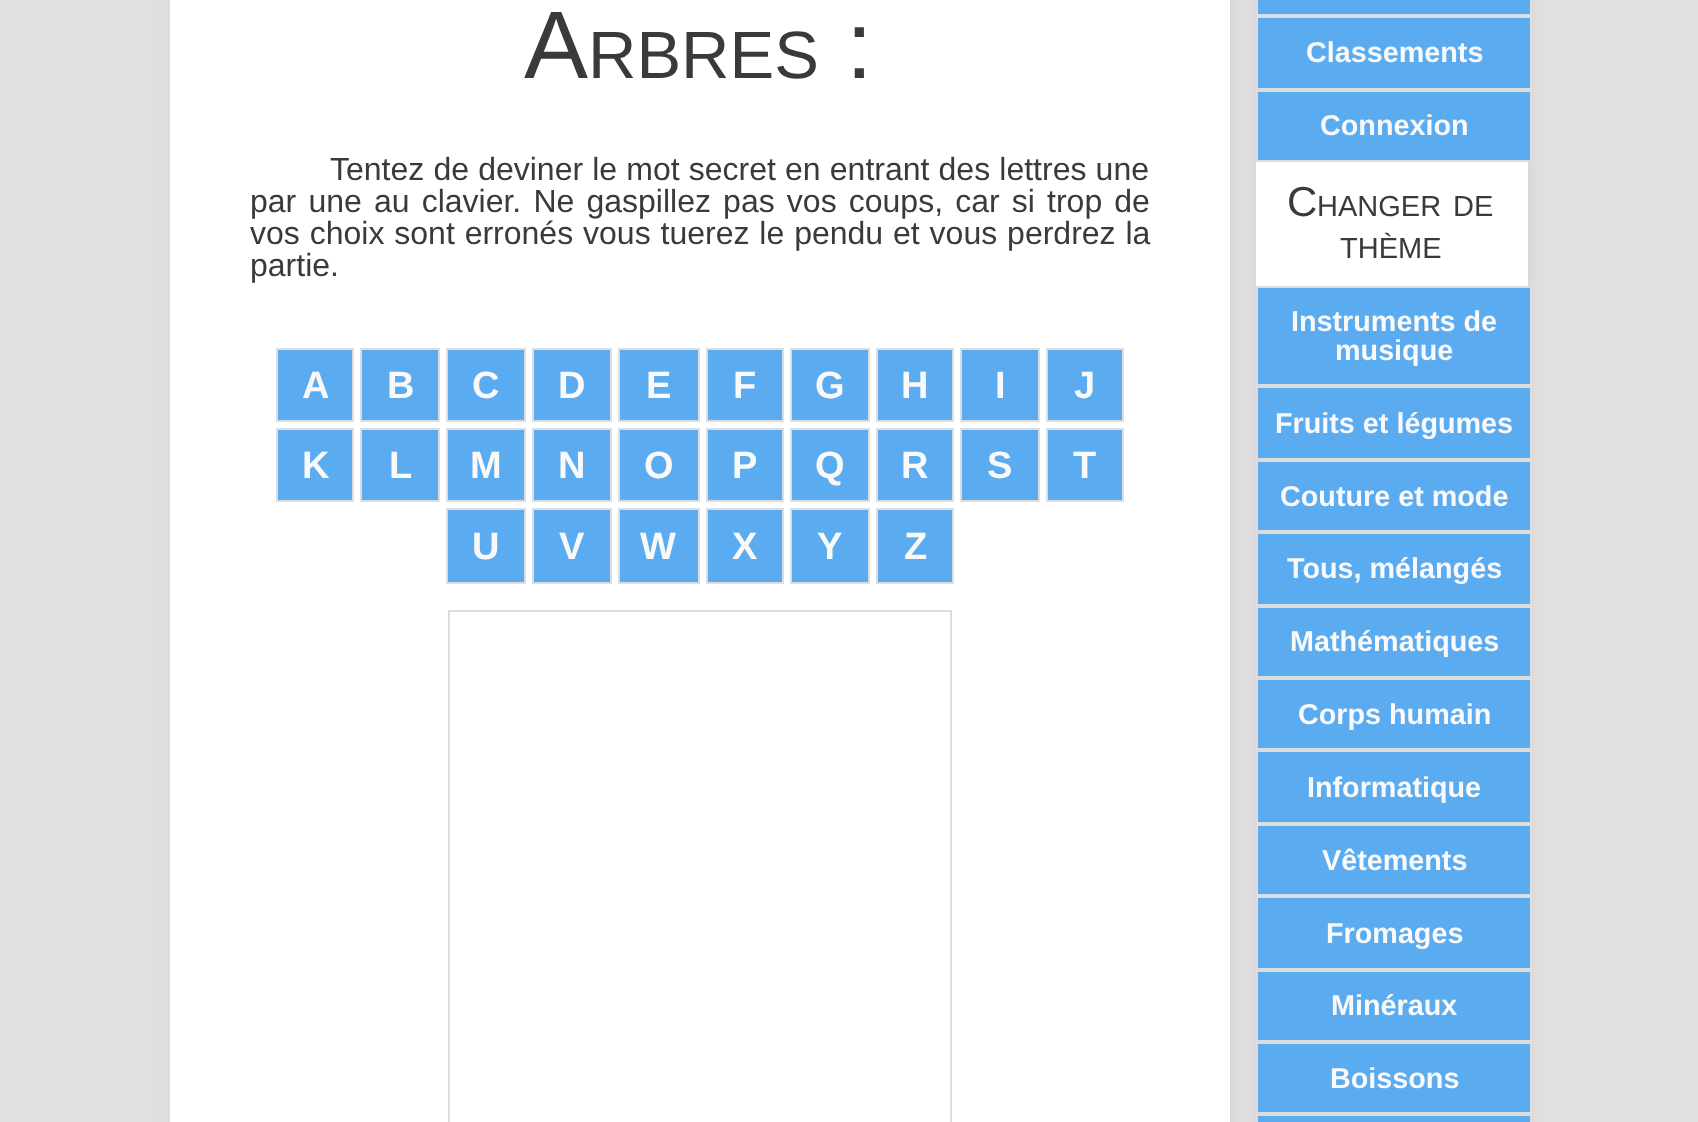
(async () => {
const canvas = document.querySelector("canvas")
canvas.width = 1698
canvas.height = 1122
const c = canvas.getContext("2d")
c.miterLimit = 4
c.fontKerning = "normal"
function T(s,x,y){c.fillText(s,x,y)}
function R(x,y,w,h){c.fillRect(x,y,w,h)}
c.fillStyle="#e0e0e0"
R(0,0,1698,1122)
c.fillStyle="#d2d2d2"
c.filter="blur(8px)"
c.beginPath()
c.rect(172,-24,1060,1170)
c.fill()
c.filter="none"
c.fillStyle="#fff"
R(170,0,1060,1122)
c.font="96px Liberation Sans"
c.fillStyle="#3a3a3a"
T("A",524,78)
c.font="67px Liberation Sans"
T("RBRES",588,78)
c.font="96px Liberation Sans"
T(":",846,78)
c.wordSpacing="0.25px"
c.font="32px Liberation Sans"
T("Tentez de deviner le mot secret en entrant des lettres une",330,180)
c.wordSpacing="3.25px"
T("par une au clavier. Ne gaspillez pas vos coups, car si trop de",250,212)
c.wordSpacing="1px"
T("vos choix sont erronés vous tuerez le pendu et vous perdrez la",250,244)
c.wordSpacing="0px"
T("partie.",250,276)
c.fillStyle="#5babf1"
c.beginPath()
c.rect(277,349,76,72)
c.fill()
c.strokeStyle="#ddd"
c.lineWidth=2
c.stroke()
c.font="bold 38px Liberation Sans"
c.fillStyle="#f9f9f9"
T("A",302,398)
c.fillStyle="#5babf1"
c.beginPath()
c.rect(361,349,78,72)
c.fill()
c.stroke()
c.fillStyle="#f9f9f9"
T("B",387,398)
c.fillStyle="#5babf1"
c.beginPath()
c.rect(447,349,78,72)
c.fill()
c.stroke()
c.fillStyle="#f9f9f9"
T("C",472,398)
c.fillStyle="#5babf1"
c.beginPath()
c.rect(533,349,78,72)
c.fill()
c.stroke()
c.fillStyle="#f9f9f9"
T("D",558,398)
c.fillStyle="#5babf1"
c.beginPath()
c.rect(619,349,80,72)
c.fill()
c.stroke()
c.fillStyle="#f9f9f9"
T("E",646,398)
c.fillStyle="#5babf1"
c.beginPath()
c.rect(707,349,76,72)
c.fill()
c.stroke()
c.fillStyle="#f9f9f9"
T("F",733,398)
c.fillStyle="#5babf1"
c.beginPath()
c.rect(791,349,78,72)
c.fill()
c.stroke()
c.fillStyle="#f9f9f9"
T("G",815,398)
c.fillStyle="#5babf1"
c.beginPath()
c.rect(877,349,76,72)
c.fill()
c.stroke()
c.fillStyle="#f9f9f9"
T("H",901,398)
c.fillStyle="#5babf1"
c.beginPath()
c.rect(961,349,78,72)
c.fill()
c.stroke()
c.fillStyle="#f9f9f9"
T("I",995,398)
c.fillStyle="#5babf1"
c.beginPath()
c.rect(1047,349,76,72)
c.fill()
c.stroke()
c.fillStyle="#f9f9f9"
T("J",1074,398)
c.fillStyle="#5babf1"
c.beginPath()
c.rect(277,429,76,72)
c.fill()
c.stroke()
c.fillStyle="#f9f9f9"
T("K",302,478)
c.fillStyle="#5babf1"
c.beginPath()
c.rect(361,429,78,72)
c.fill()
c.stroke()
c.fillStyle="#f9f9f9"
T("L",389,478)
c.fillStyle="#5babf1"
c.beginPath()
c.rect(447,429,78,72)
c.fill()
c.stroke()
c.fillStyle="#f9f9f9"
T("M",470,478)
c.fillStyle="#5babf1"
c.beginPath()
c.rect(533,429,78,72)
c.fill()
c.stroke()
c.fillStyle="#f9f9f9"
T("N",558,478)
c.fillStyle="#5babf1"
c.beginPath()
c.rect(619,429,80,72)
c.fill()
c.stroke()
c.fillStyle="#f9f9f9"
T("O",644,478)
c.fillStyle="#5babf1"
c.beginPath()
c.rect(707,429,76,72)
c.fill()
c.stroke()
c.fillStyle="#f9f9f9"
T("P",732,478)
c.fillStyle="#5babf1"
c.beginPath()
c.rect(791,429,78,72)
c.fill()
c.stroke()
c.fillStyle="#f9f9f9"
T("Q",815,478)
c.fillStyle="#5babf1"
c.beginPath()
c.rect(877,429,76,72)
c.fill()
c.stroke()
c.fillStyle="#f9f9f9"
T("R",901,478)
c.fillStyle="#5babf1"
c.beginPath()
c.rect(961,429,78,72)
c.fill()
c.stroke()
c.fillStyle="#f9f9f9"
T("S",987,478)
c.fillStyle="#5babf1"
c.beginPath()
c.rect(1047,429,76,72)
c.fill()
c.stroke()
c.fillStyle="#f9f9f9"
T("T",1073,478)
c.fillStyle="#5babf1"
c.beginPath()
c.rect(447,509,78,74)
c.fill()
c.stroke()
c.fillStyle="#f9f9f9"
T("U",472,559)
c.fillStyle="#5babf1"
c.beginPath()
c.rect(533,509,78,74)
c.fill()
c.stroke()
c.fillStyle="#f9f9f9"
T("V",559,559)
c.fillStyle="#5babf1"
c.beginPath()
c.rect(619,509,80,74)
c.fill()
c.stroke()
c.fillStyle="#f9f9f9"
T("W",640,559)
c.fillStyle="#5babf1"
c.beginPath()
c.rect(707,509,76,74)
c.fill()
c.stroke()
c.fillStyle="#f9f9f9"
T("X",732,559)
c.fillStyle="#5babf1"
c.beginPath()
c.rect(791,509,78,74)
c.fill()
c.stroke()
c.fillStyle="#f9f9f9"
T("Y",817,559)
c.fillStyle="#5babf1"
c.beginPath()
c.rect(877,509,76,74)
c.fill()
c.stroke()
c.fillStyle="#f9f9f9"
T("Z",904,559)
c.strokeRect(449,611,502,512)
c.fillStyle="#d2d2d2"
c.filter="blur(8px)"
c.beginPath()
c.rect(1258,-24,272,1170)
c.fill()
c.filter="none"
c.fillStyle="#fff"
R(1256,162,272,124)
c.fillStyle="#5babf1"
c.beginPath()
c.rect(1257,-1,274,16)
c.fill()
c.stroke()
c.beginPath()
c.rect(1257,17,274,72)
c.fill()
c.stroke()
c.font="bold 28.75px Liberation Sans"
c.fillStyle="#f9f9f9"
T("Classements",1306,62)
c.fillStyle="#5babf1"
c.beginPath()
c.rect(1257,91,274,70)
c.fill()
c.stroke()
c.fillStyle="#f9f9f9"
T("Connexion",1320,135)
c.font="42px Liberation Sans"
c.fillStyle="#3a3a3a"
T("C",1287,216)
c.font="29px Liberation Sans"
T("HANGER",1317,216)
T("DE",1453,216)
T("THÈME",1340,258)
c.fillStyle="#5babf1"
c.beginPath()
c.rect(1257,287,274,98)
c.fill()
c.stroke()
c.font="bold 28.75px Liberation Sans"
c.fillStyle="#f9f9f9"
T("Instruments de",1291,331)
T("musique",1335,360)
c.fillStyle="#5babf1"
c.beginPath()
c.rect(1257,387,274,72)
c.fill()
c.stroke()
c.fillStyle="#f9f9f9"
T("Fruits et légumes",1275,433)
c.fillStyle="#5babf1"
c.beginPath()
c.rect(1257,461,274,70)
c.fill()
c.stroke()
c.fillStyle="#f9f9f9"
T("Couture et mode",1280,506)
c.fillStyle="#5babf1"
c.beginPath()
c.rect(1257,533,274,72)
c.fill()
c.stroke()
c.fillStyle="#f9f9f9"
T("Tous, mélangés",1287,578)
c.fillStyle="#5babf1"
c.beginPath()
c.rect(1257,607,274,70)
c.fill()
c.stroke()
c.fillStyle="#f9f9f9"
T("Mathématiques",1290,651)
c.fillStyle="#5babf1"
c.beginPath()
c.rect(1257,679,274,70)
c.fill()
c.stroke()
c.fillStyle="#f9f9f9"
T("Corps humain",1298,724)
c.fillStyle="#5babf1"
c.beginPath()
c.rect(1257,751,274,72)
c.fill()
c.stroke()
c.fillStyle="#f9f9f9"
T("Informatique",1307,797)
c.fillStyle="#5babf1"
c.beginPath()
c.rect(1257,825,274,70)
c.fill()
c.stroke()
c.fillStyle="#f9f9f9"
T("Vêtements",1322,870)
c.fillStyle="#5babf1"
c.beginPath()
c.rect(1257,897,274,72)
c.fill()
c.stroke()
c.fillStyle="#f9f9f9"
T("Fromages",1326,943)
c.fillStyle="#5babf1"
c.beginPath()
c.rect(1257,971,274,70)
c.fill()
c.stroke()
c.fillStyle="#f9f9f9"
T("Minéraux",1331,1015)
c.fillStyle="#5babf1"
c.beginPath()
c.rect(1257,1043,274,70)
c.fill()
c.stroke()
c.fillStyle="#f9f9f9"
T("Boissons",1330,1088)
c.fillStyle="#5babf1"
c.beginPath()
c.rect(1257,1115,274,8)
c.fill()
c.stroke()
})()
